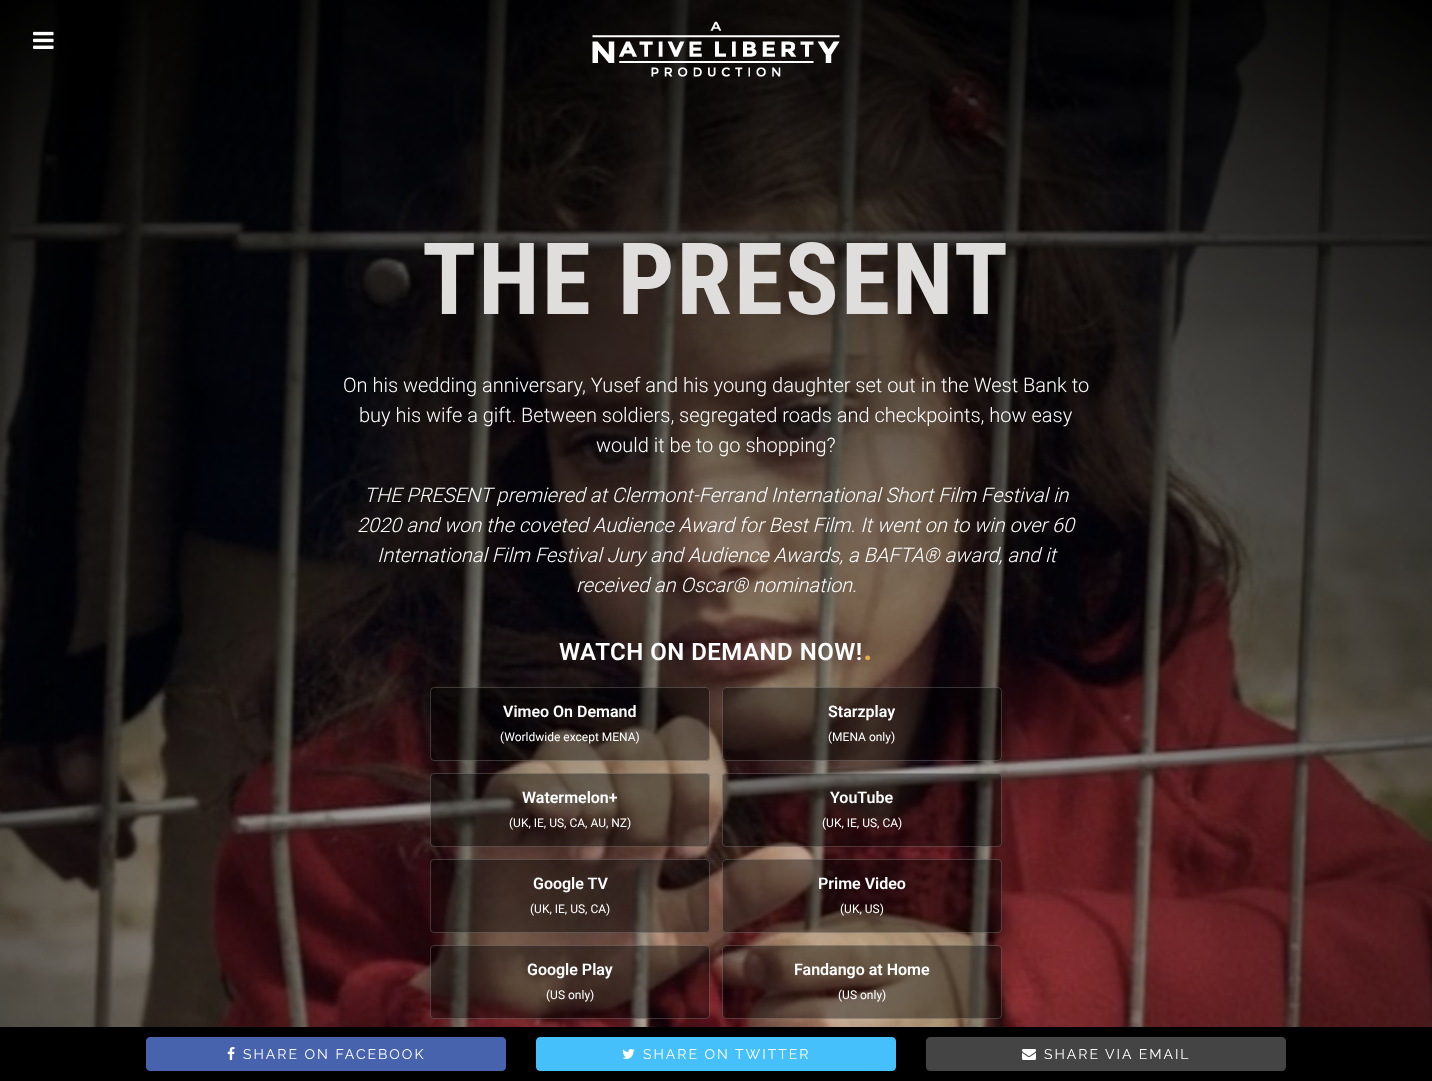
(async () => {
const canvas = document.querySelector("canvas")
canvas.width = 1432
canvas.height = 1081
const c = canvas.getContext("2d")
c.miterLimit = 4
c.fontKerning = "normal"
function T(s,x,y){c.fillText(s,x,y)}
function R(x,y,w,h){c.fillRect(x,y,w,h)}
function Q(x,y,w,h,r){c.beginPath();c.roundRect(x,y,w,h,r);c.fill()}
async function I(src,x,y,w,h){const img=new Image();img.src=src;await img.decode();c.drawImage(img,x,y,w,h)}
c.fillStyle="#fff"
R(0,0,1432,1081)
await I("2.png",0,0,1432,1027)
await I("1.png",33,31,21,18)
await I("3.png",592,21,248,56)
c.letterSpacing="2px"
c.font="bold 100px Roboto Condensed"
c.fillStyle="#dfdedd"
T("THE PRESENT",422,314)
c.letterSpacing="0px"
c.font="300 20px Roboto"
c.fillStyle="#fff"
T("On his wedding anniversary, Yusef and his young daughter set out in the West Bank to",343,392)
T("buy his wife a gift. Between soldiers, segregated roads and checkpoints, how easy",359,422)
T("would it be to go shopping?",596,452)
c.font="italic 300 20px Roboto"
T("THE PRESENT premiered at Clermont-Ferrand International Short Film Festival in",364,502)
T("2020 and won the coveted Audience Award for Best Film. It went on to win over 60",357,532)
T("International Film Festival Jury and Audience Awards, a BAFTA® award, and it",377,562)
T("received an Oscar® nomination.",576,592)
c.letterSpacing="0.5px"
c.font="600 24px Roboto"
T("WATCH ON DEMAND NOW!",559,660)
c.font="600 34px Roboto"
c.fillStyle="#e6ae49"
T(".",863,660)
c.fillStyle="#00000066"
Q(430,687,280,74,4)
c.beginPath()
c.roundRect(430.5,687.5,279,73,3.5)
c.strokeStyle="#ffffff33"
c.stroke()
c.letterSpacing="0px"
c.font="600 16px Roboto"
c.fillStyle="#fff"
T("Vimeo On Demand",503,717)
c.font="12px Roboto"
T("(Worldwide except MENA)",500,741)
c.fillStyle="#00000066"
Q(722,687,280,74,4)
c.beginPath()
c.roundRect(722.5,687.5,279,73,3.5)
c.stroke()
c.font="600 16px Roboto"
c.fillStyle="#fff"
T("Starzplay",828,717)
c.font="12px Roboto"
T("(MENA only)",828,741)
c.fillStyle="#00000066"
Q(430,773,280,74,4)
c.beginPath()
c.roundRect(430.5,773.5,279,73,3.5)
c.stroke()
c.font="600 16px Roboto"
c.fillStyle="#fff"
T("Watermelon+",522,803)
c.font="12px Roboto"
T("(UK, IE, US, CA, AU, NZ)",509,827)
c.fillStyle="#00000066"
Q(722,773,280,74,4)
c.beginPath()
c.roundRect(722.5,773.5,279,73,3.5)
c.stroke()
c.font="600 16px Roboto"
c.fillStyle="#fff"
T("YouTube",830,803)
c.font="12px Roboto"
T("(UK, IE, US, CA)",822,827)
c.fillStyle="#00000066"
Q(430,859,280,74,4)
c.beginPath()
c.roundRect(430.5,859.5,279,73,3.5)
c.stroke()
c.font="600 16px Roboto"
c.fillStyle="#fff"
T("Google TV",533,889)
c.font="12px Roboto"
T("(UK, IE, US, CA)",530,913)
c.fillStyle="#00000066"
Q(722,859,280,74,4)
c.beginPath()
c.roundRect(722.5,859.5,279,73,3.5)
c.stroke()
c.font="600 16px Roboto"
c.fillStyle="#fff"
T("Prime Video",818,889)
c.font="12px Roboto"
T("(UK, US)",840,913)
c.fillStyle="#00000066"
Q(430,945,280,74,4)
c.beginPath()
c.roundRect(430.5,945.5,279,73,3.5)
c.stroke()
c.font="600 16px Roboto"
c.fillStyle="#fff"
T("Google Play",527,975)
c.font="12px Roboto"
T("(US only)",546,999)
c.fillStyle="#00000066"
Q(722,945,280,74,4)
c.beginPath()
c.roundRect(722.5,945.5,279,73,3.5)
c.stroke()
c.font="600 16px Roboto"
c.fillStyle="#fff"
T("Fandango at Home",794,975)
c.font="12px Roboto"
T("(US only)",838,999)
c.fillStyle="#000"
R(0,1027,1432,54)
c.fillStyle="#4863ae"
c.beginPath()
c.roundRect(146.5,1037.5,359,33,3.5)
c.fill()
c.strokeStyle="#4863ae"
c.stroke()
await I("4.png",227,1047,8,13)
c.letterSpacing="2px"
c.font="14px Raleway"
c.fillStyle="#fff"
T("SHARE ON FACEBOOK",243,1059)
c.fillStyle="#46c0fb"
c.beginPath()
c.roundRect(536.5,1037.5,359,33,3.5)
c.fill()
c.strokeStyle="#46c0fb"
c.stroke()
await I("5.png",622,1049,13,10)
c.fillStyle="#fff"
T("SHARE ON TWITTER",643,1059)
c.fillStyle="#444"
c.beginPath()
c.roundRect(926.5,1037.5,359,33,3.5)
c.fill()
c.strokeStyle="#444"
c.stroke()
await I("6.png",1022,1049,14,11)
c.fillStyle="#fff"
T("SHARE VIA EMAIL",1044,1059)
})()
